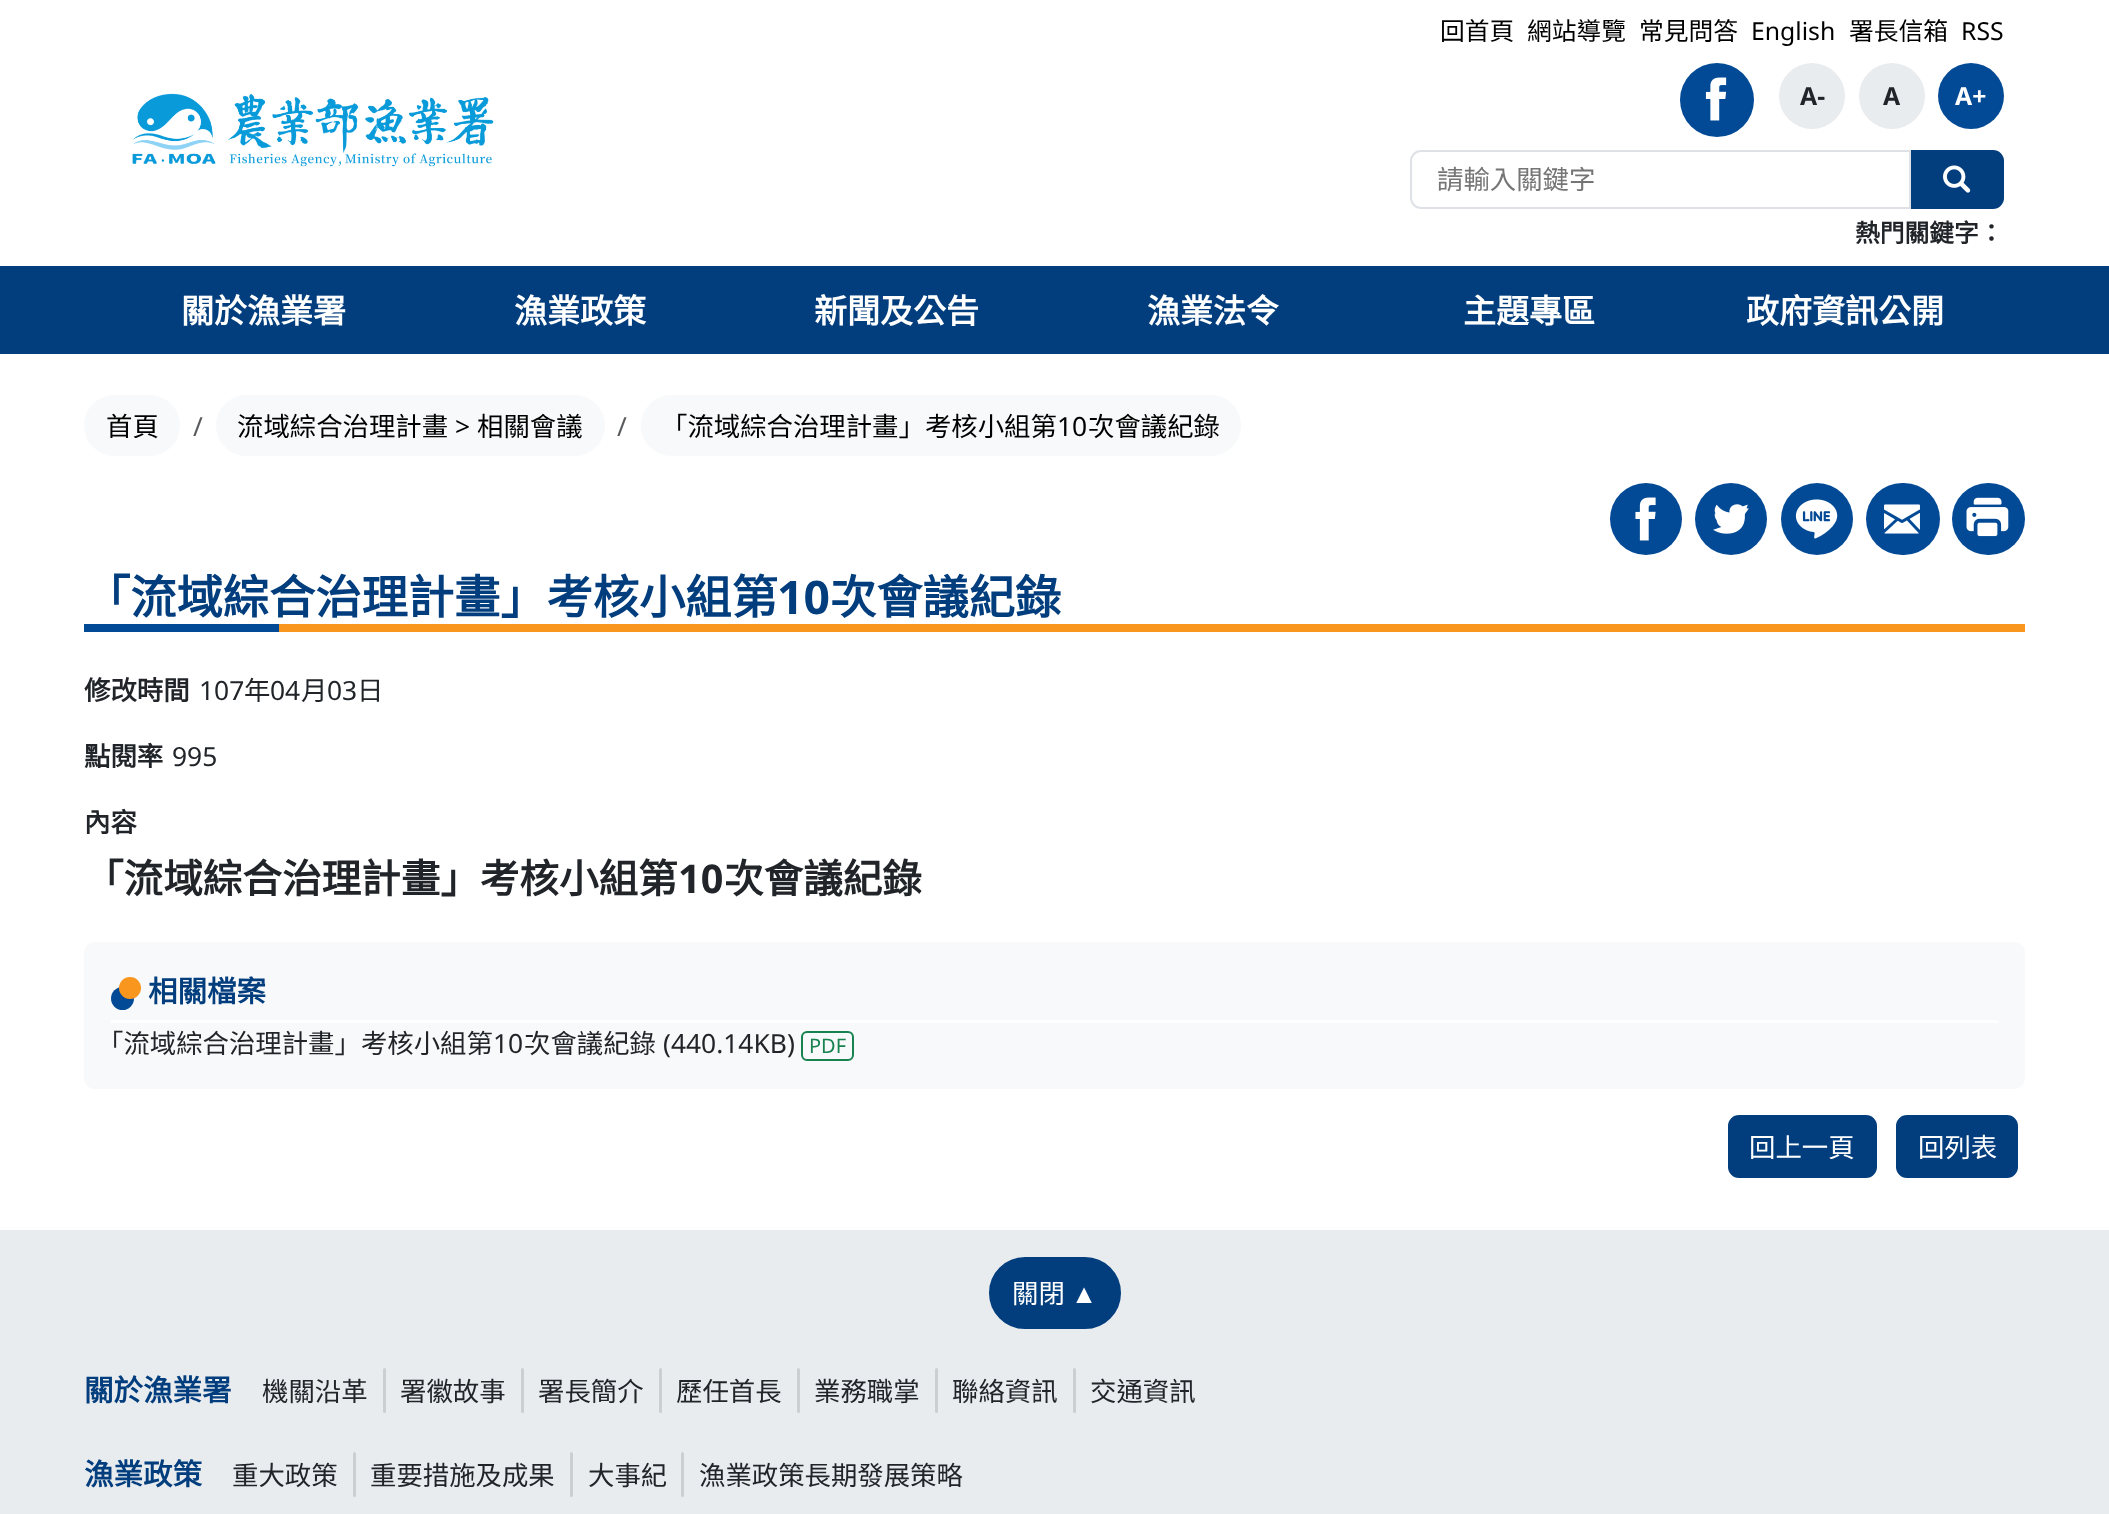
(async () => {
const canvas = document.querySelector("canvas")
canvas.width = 2109
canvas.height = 1514
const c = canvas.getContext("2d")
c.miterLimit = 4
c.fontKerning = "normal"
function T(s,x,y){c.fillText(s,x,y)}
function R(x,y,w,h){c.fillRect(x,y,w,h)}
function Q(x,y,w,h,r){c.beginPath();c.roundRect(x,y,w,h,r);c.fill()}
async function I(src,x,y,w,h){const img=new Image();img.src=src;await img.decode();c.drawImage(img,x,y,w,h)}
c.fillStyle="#fff"
R(0,0,2109,1514)
await I("1.png",132,93,362,74)
c.font="24.75px Noto Sans CJK TC"
c.fillStyle="#000"
T("回首頁",1440,40)
T("網站導覽",1527,40)
T("常見問答",1639,40)
c.font="24.75px Noto Sans"
T("English",1751,40)
c.font="24.75px Noto Sans CJK TC"
T("署長信箱",1849,40)
c.font="24.75px Noto Sans"
T("RSS",1961,40)
c.fillStyle="#024a96"
c.beginPath()
c.arc(1717,100,37,0,7)
c.fill()
await I("2.png",1705,77,22,44)
c.fillStyle="#e9ecef"
c.beginPath()
c.arc(1812,96,33,0,7)
c.fill()
c.font="bold 24.75px Noto Sans"
c.fillStyle="#212529"
T("A-",1800,105)
c.fillStyle="#e9ecef"
c.beginPath()
c.arc(1892,96,33,0,7)
c.fill()
c.fillStyle="#212529"
T("A",1883,105)
c.fillStyle="#024a96"
c.beginPath()
c.arc(1971,96,33,0,7)
c.fill()
c.fillStyle="#fff"
T("A+",1955,105)
c.beginPath()
c.roundRect(1411,151,499,57,[10,0,0,10])
c.strokeStyle="#dee2e6"
c.lineWidth=2
c.stroke()
c.font="26.4px Noto Sans CJK TC"
c.fillStyle="#757575"
T("請輸入關鍵字",1437,189)
c.fillStyle="#023e7d"
c.beginPath()
c.roundRect(1911,150,93,59,[0,11,11,0])
c.fill()
await I("3.png",1943,165,28,28)
c.font="bold 24.75px Noto Sans CJK TC"
c.fillStyle="#212529"
T("熱門關鍵字：",1855,242)
c.fillStyle="#023e7d"
R(0,266,2109,88)
c.font="bold 33px Noto Sans CJK TC"
c.fillStyle="#fff"
T("關於漁業署",181,323)
T("漁業政策",514,323)
T("新聞及公告",814,323)
T("漁業法令",1147,323)
T("主題專區",1463,323)
T("政府資訊公開",1746,323)
c.fillStyle="#f8f9fa"
Q(84,395,96,61,30.5)
c.font="26.4px Noto Sans CJK TC"
c.fillStyle="#000"
T("首頁",106,436)
c.font="26.4px Noto Sans"
c.fillStyle="#595c5f"
T("/",193,436)
c.fillStyle="#f8f9fa"
Q(216,395,389,61,30.5)
c.font="26.4px Noto Sans CJK TC"
c.fillStyle="#000"
T("流域綜合治理計畫",237,436)
c.font="26.4px Noto Sans"
T(">",455,436)
c.font="26.4px Noto Sans CJK TC"
T("相關會議",477,436)
c.font="26.4px Noto Sans"
c.fillStyle="#595c5f"
T("/",617,436)
c.fillStyle="#f8f9fa"
Q(641,395,600,61,30.5)
c.font="26.4px Noto Sans CJK TC"
c.fillStyle="#000"
T("「流域綜合治理計畫」考核小組第",661,436)
c.font="26.4px Noto Sans"
T("10",1057,436)
c.font="26.4px Noto Sans CJK TC"
T("次會議紀錄",1088,436)
c.fillStyle="#024a96"
c.beginPath()
c.arc(1646,519,36,0,7)
c.fill()
await I("4.png",1635,497,21,44)
c.beginPath()
c.arc(1731,519,36,0,7)
c.fill()
await I("5.png",1713,504,36,30)
c.beginPath()
c.arc(1817,519,36,0,7)
c.fill()
await I("6.png",1795,499,43,40)
Q(1866,483,74,72,36)
await I("7.png",1884,504,36,30)
Q(1952,483,73,72,36)
await I("8.png",1966,497,43,40)
c.font="bold 46.25px Noto Sans CJK TC"
c.fillStyle="#023e7d"
T("「流域綜合治理計畫」考核小組第",84,614)
c.font="bold 46.25px Noto Sans"
T("10",777,614)
c.font="bold 46.25px Noto Sans CJK TC"
T("次會議紀錄",830,614)
c.fillStyle="#024a96"
R(84,624,195,8)
c.fillStyle="#f8961e"
R(279,624,1746,8)
c.font="bold 26.4px Noto Sans CJK TC"
c.fillStyle="#212529"
T("修改時間",84,700)
c.font="26.4px Noto Sans"
T("107",199,700)
c.font="26.4px Noto Sans CJK TC"
T("年",244,700)
c.font="26.4px Noto Sans"
T("04",270,700)
c.font="26.4px Noto Sans CJK TC"
T("月",301,700)
c.font="26.4px Noto Sans"
T("03",327,700)
c.font="26.4px Noto Sans CJK TC"
T("日",357,700)
c.font="bold 26.4px Noto Sans CJK TC"
T("點閱率",84,766)
c.font="26.4px Noto Sans"
T("995",172,766)
c.font="bold 26.4px Noto Sans CJK TC"
T("內容",84,832)
c.font="bold 39.6px Noto Sans CJK TC"
T("「流域綜合治理計畫」考核小組第",84,893)
c.font="bold 39.6px Noto Sans"
T("10",678,893)
c.font="bold 39.6px Noto Sans CJK TC"
T("次會議紀錄",724,893)
c.fillStyle="#f8f9fa"
Q(84,942,1941,147,11)
c.fillStyle="#fff"
R(111,1020,1887,3)
c.fillStyle="#024a96"
c.beginPath()
c.arc(122.5,998.5,11.5,0,7)
c.fill()
c.fillStyle="#f8961e"
c.beginPath()
c.arc(130,988,11,0,7)
c.fill()
c.font="bold 29.5px Noto Sans CJK TC"
c.fillStyle="#023e7d"
T("相關檔案",148,1002)
c.font="26.4px Noto Sans CJK TC"
c.fillStyle="#212529"
T("「流域綜合治理計畫」考核小組第",97,1053)
c.font="26.4px Noto Sans"
T("10",493,1053)
c.font="26.4px Noto Sans CJK TC"
T("次會議紀錄",524,1053)
c.font="26.4px Noto Sans"
T("(440.14KB)",663,1053)
c.beginPath()
c.roundRect(802,1032,51,28,5)
c.strokeStyle="#188251"
c.stroke()
c.font="20px Noto Sans"
c.fillStyle="#188251"
T("PDF",809,1053)
c.fillStyle="#023e7d"
c.beginPath()
c.roundRect(1729,1116,147,61,10)
c.fill()
c.strokeStyle="#023e7d"
c.stroke()
c.font="26.4px Noto Sans CJK TC"
c.fillStyle="#fff"
T("回上一頁",1749,1157)
c.fillStyle="#023e7d"
c.beginPath()
c.roundRect(1897,1116,120,61,10)
c.fill()
c.stroke()
c.fillStyle="#fff"
T("回列表",1918,1157)
c.fillStyle="#e9ecef"
R(0,1230,2109,284)
c.fillStyle="#023e7d"
c.beginPath()
c.roundRect(990.5,1258.5,129,69,34.5)
c.fill()
c.lineWidth=3
c.stroke()
c.fillStyle="#fff"
T("關閉",1012,1303)
c.font="26.4px Liberation Sans"
T("▲",1071,1303)
c.font="bold 29.5px Noto Sans CJK TC"
c.fillStyle="#023e7d"
T("關於漁業署",84,1401)
c.font="26.4px Noto Sans CJK TC"
c.fillStyle="#212529"
T("機關沿革",262,1401)
c.fillStyle="#cccfd1"
Q(383,1368,3,45,1.5)
c.fillStyle="#212529"
T("署徽故事",400,1401)
c.fillStyle="#cccfd1"
Q(521,1368,3,45,1.5)
c.fillStyle="#212529"
T("署長簡介",538,1401)
c.fillStyle="#cccfd1"
Q(659,1368,3,45,1.5)
c.fillStyle="#212529"
T("歷任首長",676,1401)
c.fillStyle="#cccfd1"
Q(797,1368,3,45,1.5)
c.fillStyle="#212529"
T("業務職掌",814,1401)
c.fillStyle="#cccfd1"
Q(935,1368,3,45,1.5)
c.fillStyle="#212529"
T("聯絡資訊",952,1401)
c.fillStyle="#cccfd1"
Q(1073,1368,3,45,1.5)
c.fillStyle="#212529"
T("交通資訊",1090,1401)
c.font="bold 29.5px Noto Sans CJK TC"
c.fillStyle="#023e7d"
T("漁業政策",84,1485)
c.font="26.4px Noto Sans CJK TC"
c.fillStyle="#212529"
T("重大政策",232,1485)
c.fillStyle="#cccfd1"
Q(353,1452,3,45,1.5)
c.fillStyle="#212529"
T("重要措施及成果",370,1485)
c.fillStyle="#cccfd1"
Q(570,1452,3,45,1.5)
c.fillStyle="#212529"
T("大事紀",588,1485)
c.fillStyle="#cccfd1"
Q(681,1452,3,45,1.5)
c.fillStyle="#212529"
T("漁業政策長期發展策略",699,1485)
})()
